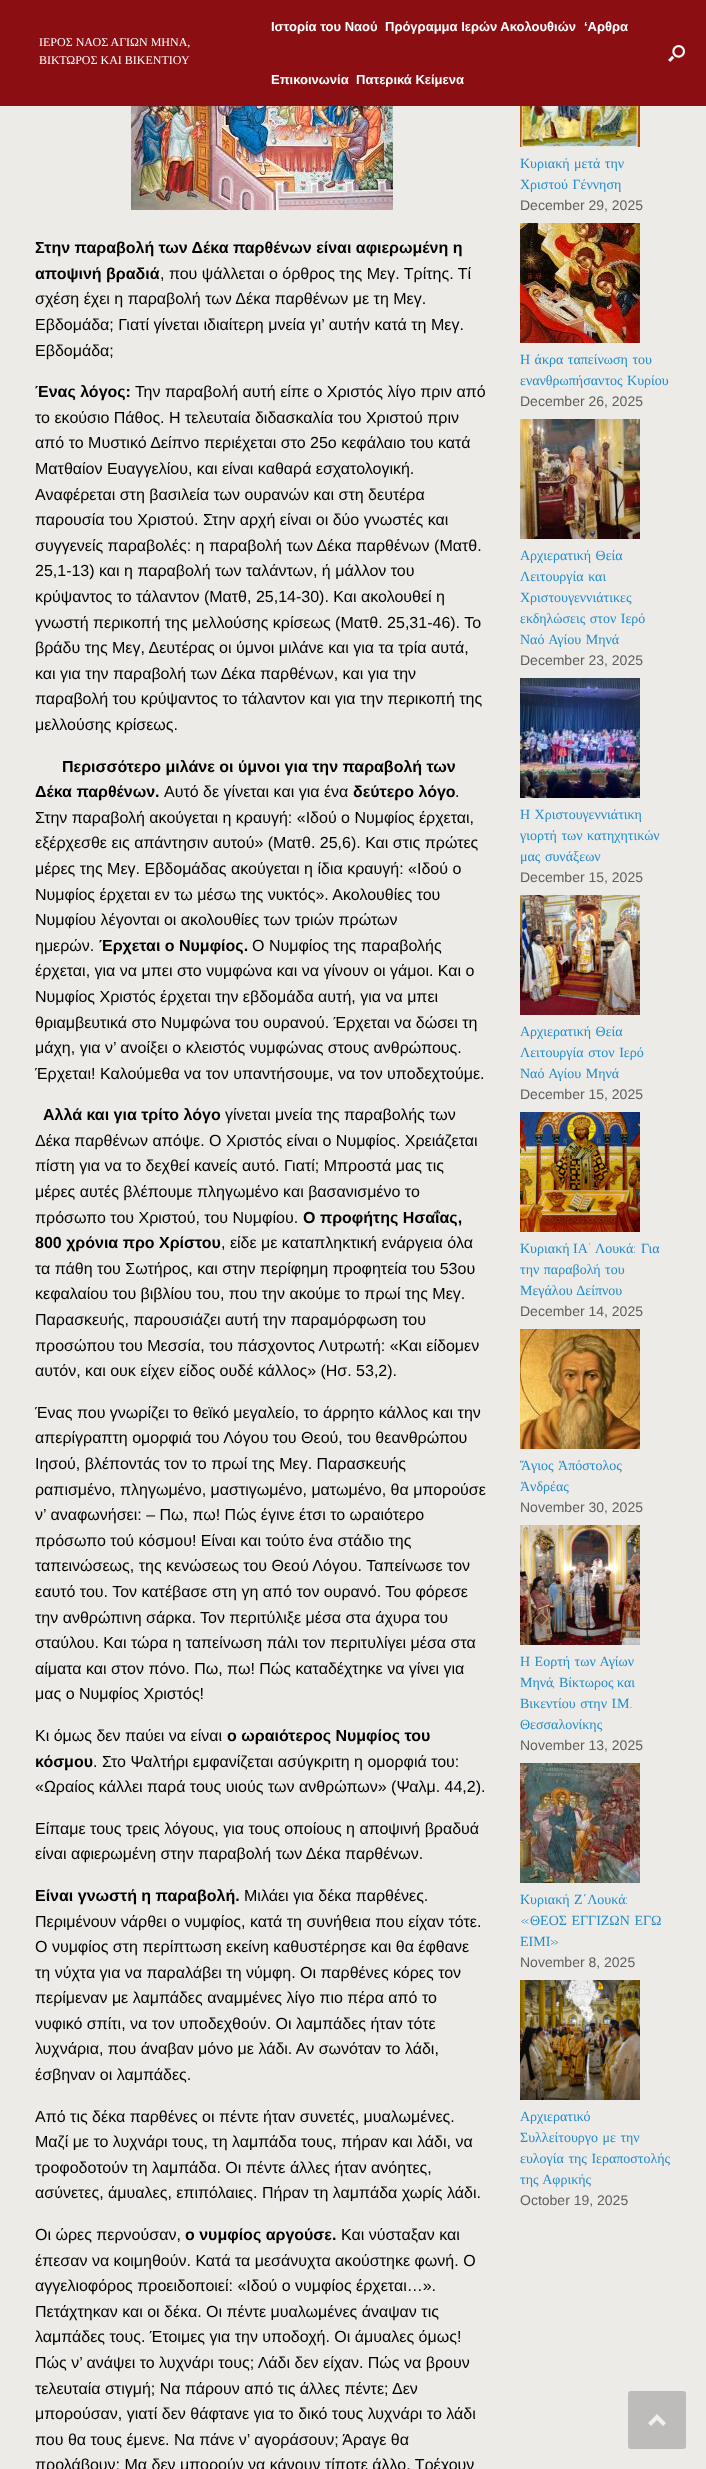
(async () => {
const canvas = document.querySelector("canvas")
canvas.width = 706
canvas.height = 2469
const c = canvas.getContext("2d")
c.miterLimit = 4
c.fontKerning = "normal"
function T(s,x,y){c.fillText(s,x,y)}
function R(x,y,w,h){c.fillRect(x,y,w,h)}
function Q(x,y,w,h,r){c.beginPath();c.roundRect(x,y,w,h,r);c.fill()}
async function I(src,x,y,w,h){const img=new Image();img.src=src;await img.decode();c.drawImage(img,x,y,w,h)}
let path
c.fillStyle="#edebe8"
R(0,0,706,2469)
c.fillStyle="#8b0e13"
R(0,0,706,106)
c.font="12px Liberation Serif"
c.fillStyle="#fff"
T("ΙΕΡΟΣ ΝΑΟΣ ΑΓΙΩΝ ΜΗΝΑ,",39,46)
T("ΒΙΚΤΩΡΟΣ ΚΑΙ ΒΙΚΕΝΤΙΟΥ",39,64)
c.font="bold 13px Liberation Sans"
T("Ιστορία του Ναού",271,31)
T("Πρόγραμμα Ιερών Ακολουθιών",385,31)
T("‘Αρθρα",584,31)
T("Επικοινωνία",271,84)
T("Πατερικά Κείμενα",356,84)
await I("1.png",668,45,17,17)
await I("2.png",131,106,262,104)
c.font="bold 16px Liberation Sans"
c.fillStyle="#000"
T("Στην παραβολή των Δέκα παρθένων είναι αφιερωμένη η",35,253)
T("αποψινή βραδιά",35,279)
c.font="16px Liberation Sans"
T(", που ψάλλεται ο όρθρος της Μεγ. Τρίτης. Τί",160,279)
T("σχέση έχει η παραβολή των Δέκα παρθένων με τη Μεγ.",35,304)
T("Εβδομάδα; Γιατί γίνεται ιδιαίτερη μνεία γι’ αυτήν κατά τη Μεγ.",35,330)
T("Εβδομάδα;",35,356)
c.font="bold 16px Liberation Sans"
T("Ένας λόγος:",35,397)
c.font="16px Liberation Sans"
T("Την παραβολή αυτή είπε ο Χριστός λίγο πριν από",135,397)
T("το εκούσιο Πάθος. Η τελευταία διδασκαλία του Χριστού πριν",35,423)
T("από το Μυστικό Δείπνο περιέχεται στο 25ο κεφάλαιο του κατά",35,448)
T("Ματθαίον Ευαγγελίου, και είναι καθαρά εσχατολογική.",35,474)
T("Αναφέρεται στη βασιλεία των ουρανών και στη δευτέρα",35,500)
T("παρουσία του Χριστού. Στην αρχή είναι οι δύο γνωστές και",35,525)
T("συγγενείς παραβολές: η παραβολή των Δέκα παρθένων (Ματθ.",35,551)
T("25,1-13) και η παραβολή των ταλάντων, ή μάλλον του",35,576)
T("κρύψαντος το τάλαντον (Ματθ, 25,14-30). Και ακολουθεί η",35,602)
T("γνωστή περικοπή της μελλούσης κρίσεως (Ματθ. 25,31-46). Το",35,628)
T("βράδυ της Μεγ, Δευτέρας οι ύμνοι μιλάνε και για τα τρία αυτά,",35,653)
T("και για την παραβολή των Δέκα παρθένων, και για την",35,679)
T("παραβολή του κρύψαντος το τάλαντον και για την περικοπή της",35,704)
T("μελλούσης κρίσεως.",35,730)
c.font="bold 16px Liberation Sans"
T("Περισσότερο μιλάνε οι ύμνοι για την παραβολή των",62,772)
T("Δέκα παρθένων.",35,797)
c.font="16px Liberation Sans"
T("Αυτό δε γίνεται και για ένα",164,797)
c.font="bold 16px Liberation Sans"
T("δεύτερο λόγο",353,797)
c.font="16px Liberation Sans"
T(".",455,797)
T("Στην παραβολή ακούγεται η κραυγή: «Ιδού ο Νυμφίος έρχεται,",35,823)
T("εξέρχεσθε εις απάντησιν αυτού» (Ματθ. 25,6). Και στις πρώτες",35,848)
T("μέρες της Μεγ. Εβδομάδας ακούγεται η ίδια κραυγή: «Ιδού ο",35,874)
T("Νυμφίος έρχεται εν τω μέσω της νυκτός». Ακολουθίες του",35,900)
T("Νυμφίου λέγονται οι ακολουθίες των τριών πρώτων",35,925)
T("ημερών.",35,951)
c.font="bold 16px Liberation Sans"
T("Έρχεται ο Νυμφίος.",99,951)
c.font="16px Liberation Sans"
T("Ο Νυμφίος της παραβολής",252,951)
T("έρχεται, για να μπει στο νυμφώνα και να γίνουν οι γάμοι. Και ο",35,976)
T("Νυμφίος Χριστός έρχεται την εβδομάδα αυτή, για να μπει",35,1002)
T("θριαμβευτικά στο Νυμφώνα του ουρανού. Έρχεται να δώσει τη",35,1028)
T("μάχη, για ν’ ανοίξει ο κλειστός νυμφώνας στους ανθρώπους.",35,1053)
T("Έρχεται! Καλούμεθα να τον υπαντήσουμε, να τον υποδεχτούμε.",35,1079)
c.font="bold 16px Liberation Sans"
T("Αλλά και για τρίτο λόγο",43,1120)
c.font="16px Liberation Sans"
T("γίνεται μνεία της παραβολής των",225,1120)
T("Δέκα παρθένων απόψε. Ο Χριστός είναι ο Νυμφίος. Χρειάζεται",35,1146)
T("πίστη για να το δεχθεί κανείς αυτό. Γιατί; Μπροστά μας τις",35,1171)
T("μέρες αυτές βλέπουμε πληγωμένο και βασανισμένο το",35,1197)
T("πρόσωπο του Χριστού, του Νυμφίου.",35,1223)
c.font="bold 16px Liberation Sans"
T("Ο προφήτης Ησαΐας,",303,1223)
T("800 χρόνια προ Χρίστου",35,1248)
c.font="16px Liberation Sans"
T(", είδε με καταπληκτική ενάργεια όλα",221,1248)
T("τα πάθη του Σωτήρος, και στην περίφημη προφητεία του 53ου",35,1274)
T("κεφαλαίου του βιβλίου του, που την ακούμε το πρωί της Μεγ.",35,1299)
T("Παρασκευής, παρουσιάζει αυτή την παραμόρφωση του",35,1325)
T("προσώπου του Μεσσία, του πάσχοντος Λυτρωτή: «Και είδομεν",35,1351)
T("αυτόν, και ουκ είχεν είδος ουδέ κάλλος» (Ησ. 53,2).",35,1376)
T("Ένας που γνωρίζει το θεϊκό μεγαλείο, το άρρητο κάλλος και την",35,1418)
T("απερίγραπτη ομορφιά του Λόγου του Θεού, του θεανθρώπου",35,1443)
T("Ιησού, βλέποντάς τον το πρωί της Μεγ. Παρασκευής",35,1469)
T("ραπισμένο, πληγωμένο, μαστιγωμένο, ματωμένο, θα μπορούσε",35,1495)
T("ν’ αναφωνήσει: – Πω, πω! Πώς έγινε έτσι το ωραιότερο",35,1520)
T("πρόσωπο τού κόσμου! Είναι και τούτο ένα στάδιο της",35,1546)
T("ταπεινώσεως, της κενώσεως του Θεού Λόγου. Ταπείνωσε τον",35,1571)
T("εαυτό του. Τον κατέβασε στη γη από τον ουρανό. Του φόρεσε",35,1597)
T("την ανθρώπινη σάρκα. Τον περιτύλιξε μέσα στα άχυρα του",35,1623)
T("σταύλου. Και τώρα η ταπείνωση πάλι τον περιτυλίγει μέσα στα",35,1648)
T("αίματα και στον πόνο. Πω, πω! Πώς καταδέχτηκε να γίνει για",35,1674)
T("μας ο Νυμφίος Χριστός!",35,1699)
T("Κι όμως δεν παύει να είναι",35,1741)
c.font="bold 16px Liberation Sans"
T("ο ωραιότερος Νυμφίος του",227,1741)
T("κόσμου",35,1767)
c.font="16px Liberation Sans"
T(". Στο Ψαλτήρι εμφανίζεται ασύγκριτη η ομορφιά του:",93,1767)
T("«Ωραίος κάλλει παρά τους υιούς των ανθρώπων» (Ψαλμ. 44,2).",35,1792)
T("Είπαμε τους τρεις λόγους, για τους οποίους η αποψινή βραδυά",35,1834)
T("είναι αφιερωμένη στην παραβολή των Δέκα παρθένων.",35,1859)
c.font="bold 16px Liberation Sans"
T("Είναι γνωστή η παραβολή.",35,1901)
c.font="16px Liberation Sans"
T("Μιλάει για δέκα παρθένες.",244,1901)
T("Περιμένουν νάρθει ο νυμφίος, κατά τη συνήθεια που είχαν τότε.",35,1927)
T("Ο νυμφίος στη περίπτωση εκείνη καθυστέρησε και θα έφθανε",35,1952)
T("τη νύχτα για να παραλάβει τη νύμφη. Οι παρθένες κόρες τον",35,1978)
T("περίμεναν με λαμπάδες αναμμένες λίγο πιο πέρα από το",35,2003)
T("νυφικό σπίτι, να τον υποδεχθούν. Οι λαμπάδες ήταν τότε",35,2029)
T("λυχνάρια, που άναβαν μόνο με λάδι. Αν σωνόταν το λάδι,",35,2054)
T("έσβηναν οι λαμπάδες.",35,2080)
T("Από τις δέκα παρθένες οι πέντε ήταν συνετές, μυαλωμένες.",35,2122)
T("Μαζί με το λυχνάρι τους, τη λαμπάδα τους, πήραν και λάδι, να",35,2147)
T("τροφοδοτούν τη λαμπάδα. Οι πέντε άλλες ήταν ανόητες,",35,2173)
T("ασύνετες, άμυαλες, επιπόλαιες. Πήραν τη λαμπάδα χωρίς λάδι.",35,2198)
T("Οι ώρες περνούσαν,",35,2240)
c.font="bold 16px Liberation Sans"
T("ο νυμφίος αργούσε.",185,2240)
c.font="16px Liberation Sans"
T("Και νύσταξαν και",341,2240)
T("έπεσαν να κοιμηθούν. Κατά τα μεσάνυχτα ακούστηκε φωνή. Ο",35,2266)
T("αγγελιοφόρος προειδοποιεί: «Ιδού ο νυμφίος έρχεται…».",35,2291)
T("Πετάχτηκαν και οι δέκα. Οι πέντε μυαλωμένες άναψαν τις",35,2317)
T("λαμπάδες τους. Έτοιμες για την υποδοχή. Οι άμυαλες όμως!",35,2342)
T("Πώς ν’ ανάψει το λυχνάρι τους; Λάδι δεν είχαν. Πώς να βρουν",35,2368)
T("τελευταία στιγμή; Να πάρουν από τις άλλες πέντε; Δεν",35,2394)
T("μπορούσαν, γιατί δεν θάφτανε για το δικό τους λυχνάρι το λάδι",35,2419)
T("που θα τους έμενε. Να πάνε ν’ αγοράσουν; Άραγε θα",35,2445)
T("προλάβουν; Μα δεν μπορούν να κάνουν τίποτε άλλο. Τρέχουν",35,2470)
await I("3.png",520,106,120,41)
c.wordSpacing="1px"
c.font="14px Liberation Serif"
c.fillStyle="#248cc8"
T("Κυριακή μετά την",520,168)
T("Χριστού Γέννηση",520,189)
c.wordSpacing="0px"
c.font="14px Liberation Sans"
c.fillStyle="#5e5e5e"
T("December 29, 2025",520,210)
await I("4.png",520,223,120,120)
c.wordSpacing="1px"
c.font="14px Liberation Serif"
c.fillStyle="#248cc8"
T("Η άκρα ταπείνωση του",520,364)
T("ενανθρωπήσαντος Κυρίου",520,385)
c.wordSpacing="0px"
c.font="14px Liberation Sans"
c.fillStyle="#5e5e5e"
T("December 26, 2025",520,406)
await I("5.png",520,419,120,120)
c.wordSpacing="1px"
c.font="14px Liberation Serif"
c.fillStyle="#248cc8"
T("Αρχιερατική Θεία",520,560)
T("Λειτουργία και",520,581)
c.wordSpacing="0px"
T("Χριστουγεννιάτικες",520,602)
c.wordSpacing="1px"
T("εκδηλώσεις στον Ιερό",520,623)
T("Ναό Αγίου Μηνά",520,644)
c.wordSpacing="0px"
c.font="14px Liberation Sans"
c.fillStyle="#5e5e5e"
T("December 23, 2025",520,665)
await I("6.png",520,678,120,120)
c.wordSpacing="1px"
c.font="14px Liberation Serif"
c.fillStyle="#248cc8"
T("Η Χριστουγεννιάτικη",520,819)
T("γιορτή των κατηχητικών",520,840)
T("μας συνάξεων",520,861)
c.wordSpacing="0px"
c.font="14px Liberation Sans"
c.fillStyle="#5e5e5e"
T("December 15, 2025",520,882)
await I("7.png",520,895,120,120)
c.wordSpacing="1px"
c.font="14px Liberation Serif"
c.fillStyle="#248cc8"
T("Αρχιερατική Θεία",520,1036)
T("Λειτουργία στον Ιερό",520,1057)
T("Ναό Αγίου Μηνά",520,1078)
c.wordSpacing="0px"
c.font="14px Liberation Sans"
c.fillStyle="#5e5e5e"
T("December 15, 2025",520,1099)
await I("8.png",520,1112,120,120)
c.font="14px Liberation Serif"
c.fillStyle="#248cc8"
T("Κυριακή ΙΑ",520,1253)
c.font="14px Antic"
T("’",588,1253)
c.font="14px Liberation Serif"
T("Λουκά",595,1253)
c.font="14px Antic"
T(":",633,1253)
c.font="14px Liberation Serif"
T("Για",641,1253)
c.wordSpacing="1px"
T("την παραβολή του",520,1274)
T("Μεγάλου Δείπνου",520,1295)
c.wordSpacing="0px"
c.font="14px Liberation Sans"
c.fillStyle="#5e5e5e"
T("December 14, 2025",520,1316)
await I("9.png",520,1329,120,120)
c.wordSpacing="1px"
c.font="14px Liberation Serif"
c.fillStyle="#248cc8"
T("Ἅγιος Ἀπόστολος",520,1470)
c.wordSpacing="0px"
T("Ἀνδρέας",520,1491)
c.font="14px Liberation Sans"
c.fillStyle="#5e5e5e"
T("November 30, 2025",520,1512)
await I("10.png",520,1525,120,120)
c.wordSpacing="1px"
c.font="14px Liberation Serif"
c.fillStyle="#248cc8"
T("Η Εορτή των Αγίων",520,1666)
c.wordSpacing="0px"
T("Μηνά",520,1687)
c.font="14px Antic"
T(",",553,1687)
c.font="14px Liberation Serif"
T("Βίκτωρος και",559,1687)
c.wordSpacing="1px"
T("Βικεντίου στην Ι",520,1708)
c.wordSpacing="0px"
c.font="14px Antic"
T(".",615,1708)
c.font="14px Liberation Serif"
T("Μ",617,1708)
c.font="14px Antic"
T(".",630,1708)
c.font="14px Liberation Serif"
T("Θεσσαλονίκης",520,1729)
c.font="14px Liberation Sans"
c.fillStyle="#5e5e5e"
T("November 13, 2025",520,1750)
await I("11.png",520,1763,120,120)
c.wordSpacing="1px"
c.font="14px Liberation Serif"
c.fillStyle="#248cc8"
T("Κυριακή Ζ΄Λουκά",520,1904)
c.wordSpacing="0px"
c.font="14px Antic"
T(":",625,1904)
T("«",520,1925)
c.wordSpacing="1px"
c.font="14px Liberation Serif"
T("ΘΕΟΣ ΕΓΓΙΖΩΝ ΕΓΩ",530,1925)
c.wordSpacing="0px"
T("ΕΙΜΙ",520,1946)
c.font="14px Antic"
T("»",550,1946)
c.font="14px Liberation Sans"
c.fillStyle="#5e5e5e"
T("November 8, 2025",520,1967)
await I("12.png",520,1980,120,120)
c.font="14px Liberation Serif"
c.fillStyle="#248cc8"
T("Αρχιερατικό",520,2121)
c.wordSpacing="1px"
T("Συλλείτουργο με την",520,2142)
T("ευλογία της Ιεραποστολής",520,2163)
T("της Αφρικής",520,2184)
c.wordSpacing="0px"
c.font="14px Liberation Sans"
c.fillStyle="#5e5e5e"
T("October 19, 2025",520,2205)
c.fillStyle="#bebcba"
Q(628,2391,58,58,3)
c.fillStyle="#f1efed"
path = new Path2D("M666 2423l-9-9l-9 9l3 3l6-6l6 6z")
c.fill(path)
})()
